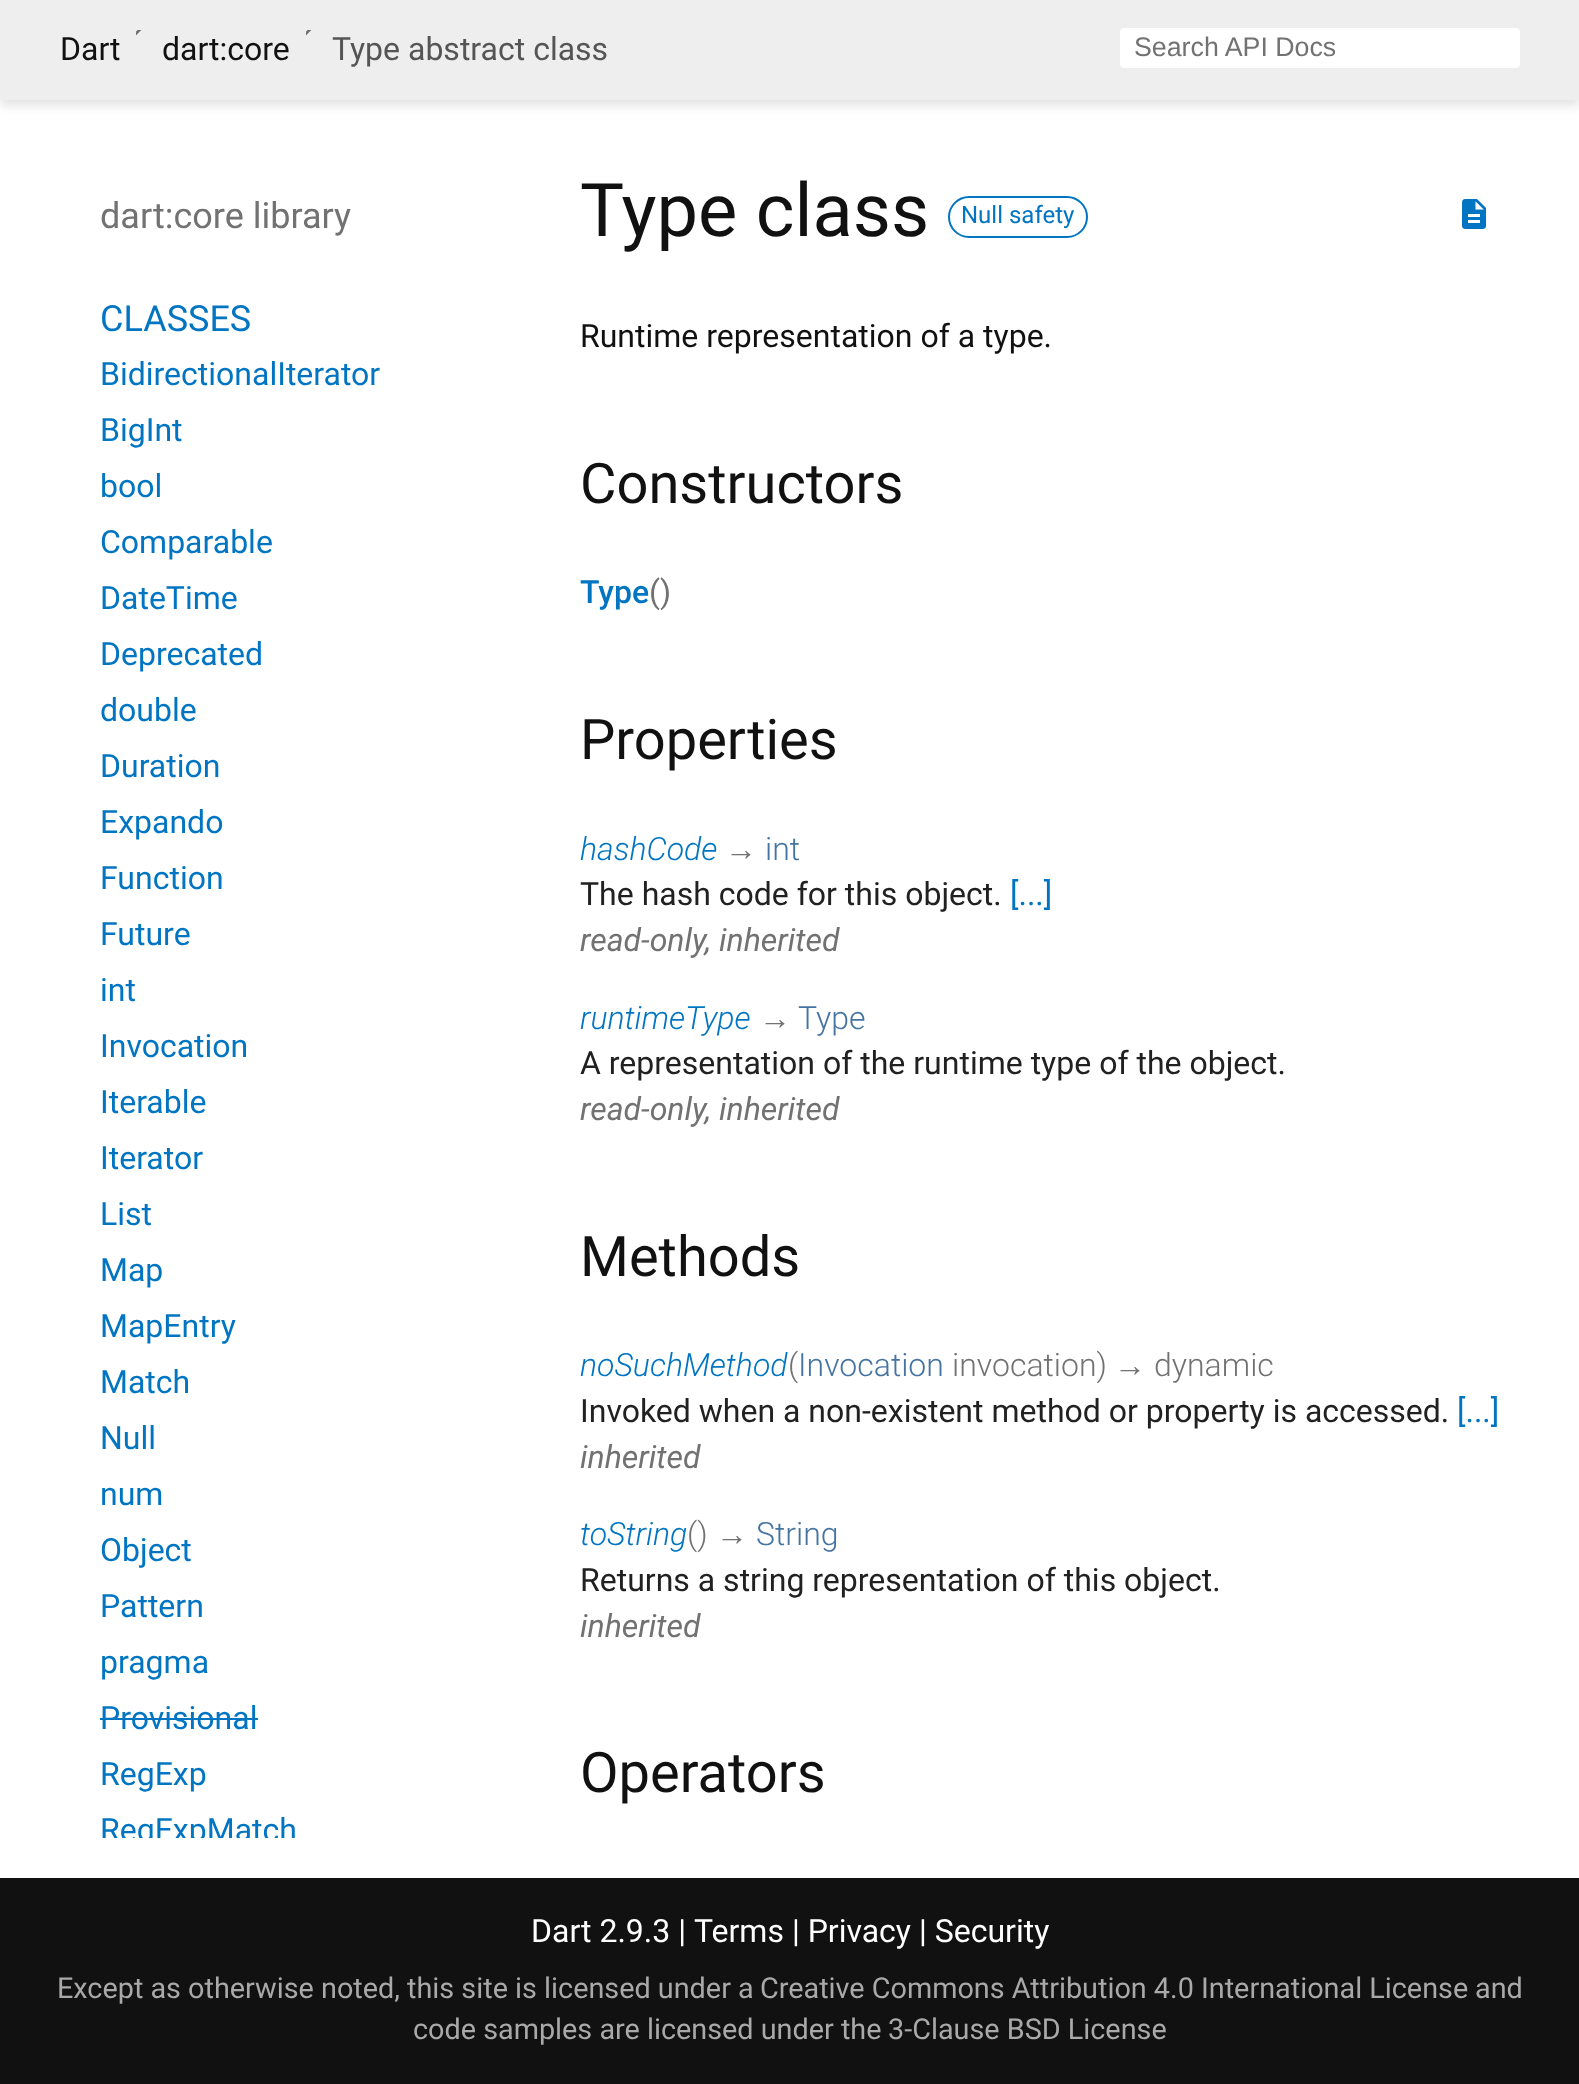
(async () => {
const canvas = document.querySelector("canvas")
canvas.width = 1579
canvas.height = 2084
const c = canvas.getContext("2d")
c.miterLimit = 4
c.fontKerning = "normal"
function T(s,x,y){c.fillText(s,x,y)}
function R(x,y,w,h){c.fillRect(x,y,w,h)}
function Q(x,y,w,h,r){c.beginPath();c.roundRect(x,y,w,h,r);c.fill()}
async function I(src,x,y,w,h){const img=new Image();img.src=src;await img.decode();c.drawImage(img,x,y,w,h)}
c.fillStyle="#fff"
R(0,0,1579,2084)
c.fillStyle="#0000001a"
c.filter="blur(5px)"
c.beginPath()
c.rect(0,6,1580,100)
c.fill()
c.filter="none"
c.fillStyle="#eee"
R(0,0,1579,100)
c.font="32px Roboto"
c.fillStyle="#111"
T("Dart",60,60)
await I("1.png",136,30,6,6)
T("dart:core",162,60)
await I("1.png",306,30,6,6)
c.fillStyle="#555"
T("Type abstract class",332,60)
c.fillStyle="#fff"
Q(1120,28,400,40,4)
c.font="26.75px Liberation Sans"
c.fillStyle="#727272"
T("Search API Docs",1134,56)
c.font="36px Roboto"
T("dart:core library",100,228)
c.fillStyle="#0175c2"
T("CLASSES",100,331)
c.font="32px Roboto"
T("BidirectionalIterator",100,385)
T("BigInt",100,441)
T("bool",100,497)
T("Comparable",100,553)
T("DateTime",100,609)
T("Deprecated",100,665)
T("double",100,721)
T("Duration",100,777)
T("Expando",100,833)
T("Function",100,889)
T("Future",100,945)
T("int",100,1001)
T("Invocation",100,1057)
T("Iterable",100,1113)
T("Iterator",100,1169)
T("List",100,1225)
T("Map",100,1281)
T("MapEntry",100,1337)
T("Match",100,1393)
T("Null",100,1449)
T("num",100,1505)
T("Object",100,1561)
T("Pattern",100,1617)
T("pragma",100,1673)
T("Provisional",100,1729)
R(100,1718,158,2)
T("RegExp",100,1785)
c.save()
c.beginPath()
c.rect(100,1804,400,34)
c.clip()
T("RegExpMatch",100,1841)
c.restore()
c.font="74px Roboto"
c.fillStyle="#111"
T("Type class",580,236)
c.beginPath()
c.roundRect(949,197,138,40,20)
c.strokeStyle="#0175c2"
c.lineWidth=2
c.stroke()
c.font="24px Roboto"
c.fillStyle="#0175c2"
T("Null safety",961,223)
await I("2.png",1461,199,26,30)
c.font="32px Roboto"
c.fillStyle="#111"
T("Runtime representation of a type.",580,347)
c.font="56px Roboto"
T("Constructors",580,503)
c.font="500 32px Roboto"
c.fillStyle="#0175c2"
T("Type",580,603)
c.font="32px Roboto"
c.fillStyle="#727272"
T("()",649,603)
c.font="56px Roboto"
c.fillStyle="#111"
T("Properties",580,759)
c.font="italic 300 32px Roboto"
c.fillStyle="#0175c2"
T("hashCode",580,860)
c.font="32px Liberation Sans"
c.fillStyle="#727272"
T("→",725,860)
c.font="300 32px Roboto"
c.fillStyle="#4674a2"
T("int",765,860)
c.font="32px Roboto"
c.fillStyle="#212121"
T("The hash code for this object.",580,905)
c.fillStyle="#0175c2"
T("[...]",1010,905)
c.font="italic 32px Roboto"
c.fillStyle="#727272"
T("read-only, inherited",580,951)
c.font="italic 300 32px Roboto"
c.fillStyle="#0175c2"
T("runtimeType",580,1029)
c.font="32px Liberation Sans"
c.fillStyle="#727272"
T("→",759,1029)
c.font="300 32px Roboto"
c.fillStyle="#4674a2"
T("Type",798,1029)
c.font="32px Roboto"
c.fillStyle="#212121"
T("A representation of the runtime type of the object.",580,1074)
c.font="italic 32px Roboto"
c.fillStyle="#727272"
T("read-only, inherited",580,1120)
c.font="56px Roboto"
c.fillStyle="#111"
T("Methods",580,1276)
c.font="italic 300 32px Roboto"
c.fillStyle="#0175c2"
T("noSuchMethod",580,1376)
c.font="300 32px Roboto"
c.fillStyle="#727272"
T("(",788,1376)
c.fillStyle="#4674a2"
T("Invocation",798,1376)
c.fillStyle="#727272"
T("invocation)",952,1376)
c.font="32px Liberation Sans"
T("→",1114,1376)
c.font="300 32px Roboto"
T("dynamic",1154,1376)
c.font="32px Roboto"
c.fillStyle="#212121"
T("Invoked when a non-existent method or property is accessed.",580,1422)
c.fillStyle="#0175c2"
T("[...]",1457,1422)
c.font="italic 32px Roboto"
c.fillStyle="#727272"
T("inherited",580,1468)
c.font="italic 300 32px Roboto"
c.fillStyle="#0175c2"
T("toString",580,1545)
c.font="300 32px Roboto"
c.fillStyle="#727272"
T("()",687,1545)
c.font="32px Liberation Sans"
T("→",716,1545)
c.font="300 32px Roboto"
c.fillStyle="#4674a2"
T("String",756,1545)
c.font="32px Roboto"
c.fillStyle="#212121"
T("Returns a string representation of this object.",580,1591)
c.font="italic 32px Roboto"
c.fillStyle="#727272"
T("inherited",580,1637)
c.font="56px Roboto"
c.fillStyle="#111"
T("Operators",580,1792)
R(0,1878,1579,206)
c.font="32px Roboto"
c.fillStyle="#fff"
T("Terms | Privacy | Security",694,1942)
c.font="28.8px Roboto"
c.fillStyle="#a9a9a9"
T("Except as otherwise noted, this site is licensed under a",57,1998)
T("Creative Commons Attribution 4.0 International License",760,1998)
T("and",1475,1998)
T("code samples are licensed under the",413,2039)
T("3-Clause BSD License",888,2039)
c.font="32px Roboto"
c.fillStyle="#fff"
T("Dart 2.9.3 |",531,1942)
})()
